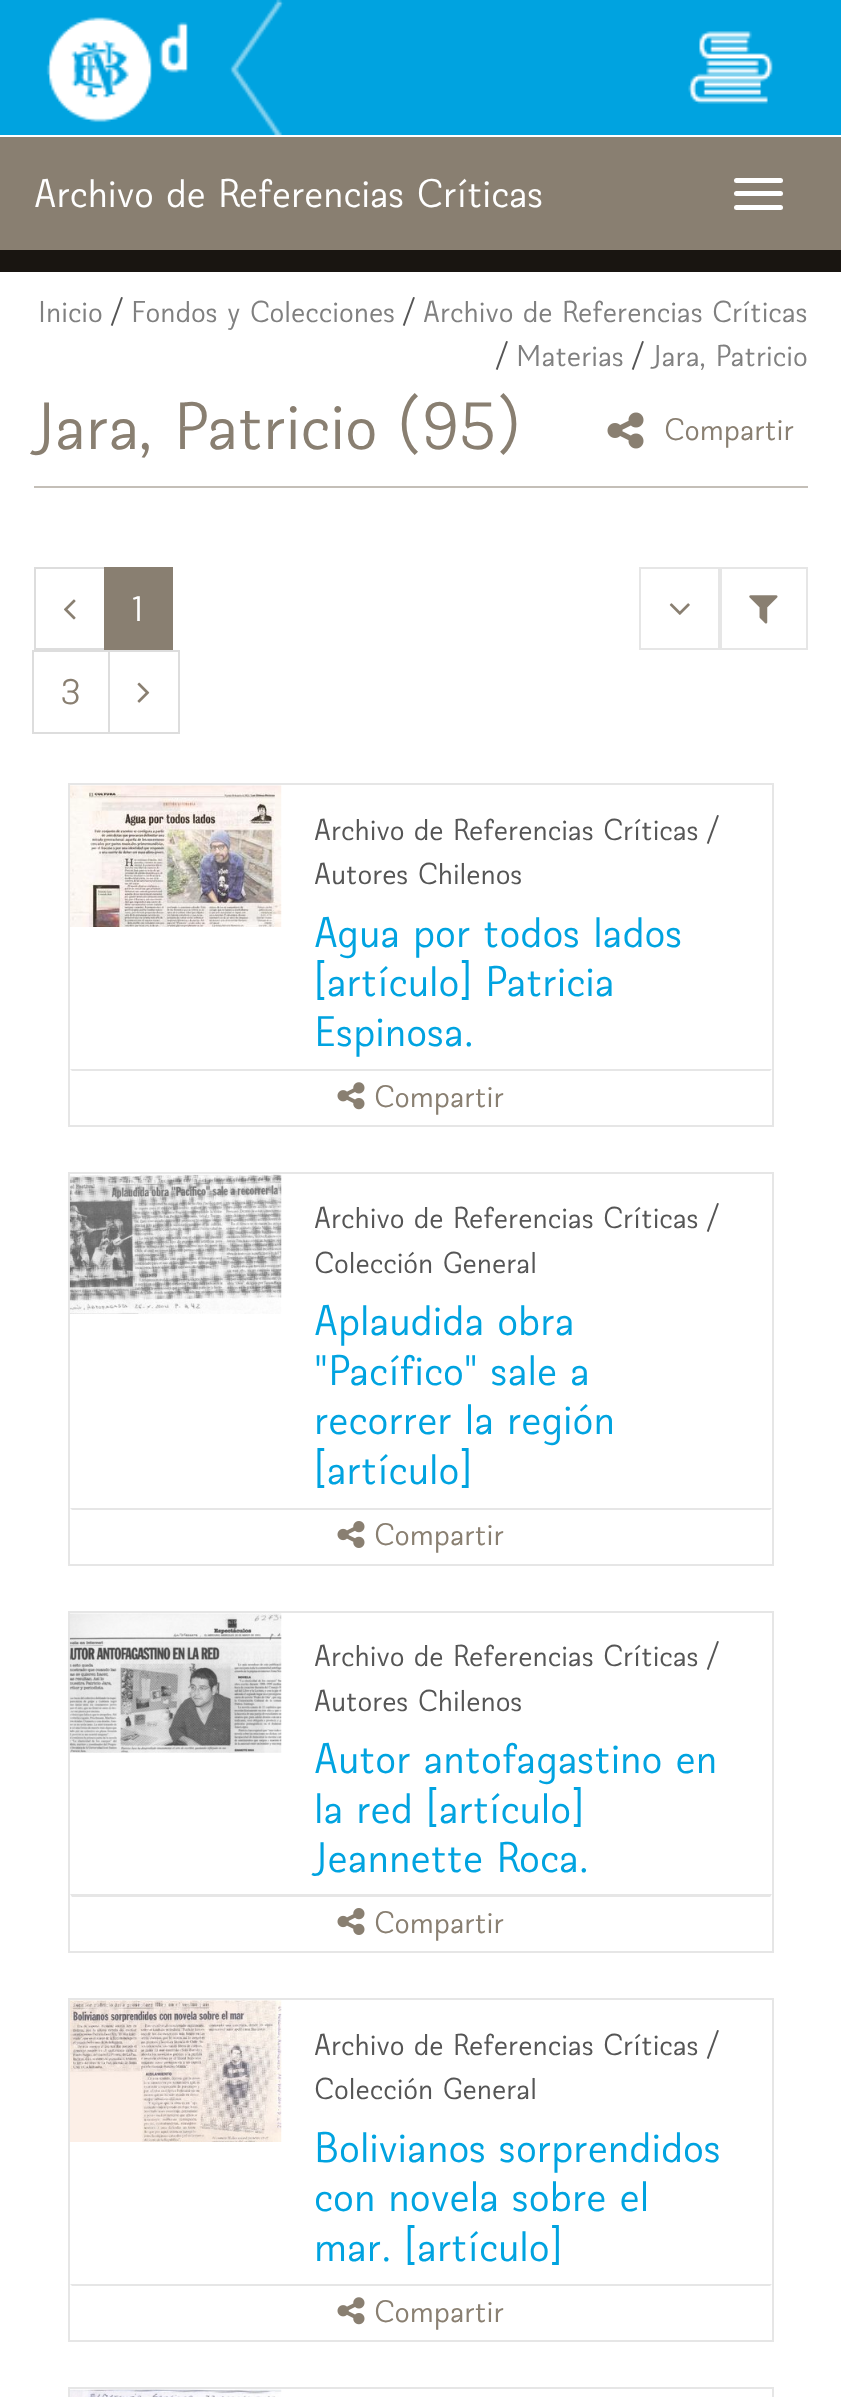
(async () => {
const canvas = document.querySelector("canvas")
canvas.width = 841
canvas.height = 2397
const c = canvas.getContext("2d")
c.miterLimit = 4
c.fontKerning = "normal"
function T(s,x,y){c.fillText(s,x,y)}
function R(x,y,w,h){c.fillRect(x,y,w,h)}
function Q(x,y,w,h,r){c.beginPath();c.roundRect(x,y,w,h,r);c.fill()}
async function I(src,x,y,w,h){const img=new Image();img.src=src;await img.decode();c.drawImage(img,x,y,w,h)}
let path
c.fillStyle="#fff"
R(0,0,841,2397)
c.fillStyle="#00a3e0"
R(0,0,841,135)
await I("1.png",46,0,238,135)
await I("2.png",688,31,85,73)
c.fillStyle="#897f71"
R(0,137,841,113)
c.fillStyle="#191511"
R(0,250,841,22)
c.font="40.5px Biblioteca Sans"
c.fillStyle="#fff"
T("Archivo de Referencias Críticas",34,207)
Q(734,178,49,5,2.5)
Q(734,191,49,5,2.5)
Q(734,205,49,5,2.5)
c.font="30.6px Biblioteca Sans"
c.fillStyle="#808080"
T("Inicio",38,322)
c.fillStyle="#555"
T("/",112,322)
c.fillStyle="#808080"
T("Fondos y Colecciones",131,322)
c.fillStyle="#555"
T("/",404,322)
c.fillStyle="#808080"
T("Archivo de Referencias Críticas",423,322)
c.fillStyle="#555"
T("/",497,366)
c.fillStyle="#808080"
T("Materias",516,366)
c.fillStyle="#555"
T("/",633,366)
c.fillStyle="#808080"
T("Jara, Patricio",652,366)
c.fillStyle="#c4bfb8"
R(34,486,774,2)
c.font="67.5px Biblioteca Sans"
c.fillStyle="#897f71"
T("Jara, Patricio (95)",34,449)
await I("3.png",607,412,37,37)
c.font="31.5px Biblioteca Sans"
T("Compartir",664,440)
c.strokeStyle="#ddd"
c.lineWidth=2
c.strokeRect(35,568,70,81)
await I("4.png",64,599,12,21)
R(104,567,69,83)
c.font="36px Biblioteca Sans"
c.fillStyle="#fff"
T("1",132,621)
c.strokeRect(33,651,76,82)
c.fillStyle="#897f71"
T("3",61,704)
c.strokeRect(109,651,70,82)
await I("5.png",137,682,13,21)
c.strokeStyle="#e6e6e6"
c.strokeRect(640,568,79,81)
await I("6.png",669,603,21,12)
c.strokeRect(721,568,86,81)
await I("7.png",749,595,29,29)
c.strokeRect(69,784,704,342)
await I("8.png",70,785,212,142)
c.font="30.6px Biblioteca Sans"
c.fillStyle="#555"
T("Archivo de Referencias Críticas /",314,840)
T("Autores Chilenos",314,884)
c.font="43.25px Biblioteca Sans"
c.fillStyle="#00a3e0"
T("Agua por todos lados",314,947)
T("[artículo] Patricia",314,996)
T("Espinosa.",314,1046)
c.fillStyle="#e6e6e6"
path = new Path2D("M70 1069h702l-2 2h-698z")
c.fill(path)
await I("9.png",337,1082,28,28)
c.font="31.5px Biblioteca Sans"
c.fillStyle="#897f71"
T("Compartir",374,1107)
c.strokeRect(69,1173,704,392)
await I("10.png",69,1174,213,140)
c.font="30.6px Biblioteca Sans"
c.fillStyle="#555"
T("Archivo de Referencias Críticas /",314,1228)
T("Colección General",314,1273)
c.font="43.25px Biblioteca Sans"
c.fillStyle="#00a3e0"
T("Aplaudida obra",314,1335)
T("\"Pacífico\" sale a",314,1385)
T("recorrer la región",314,1434)
T("[artículo]",314,1484)
c.fillStyle="#e6e6e6"
path = new Path2D("M70 1508h702l-2 2h-698z")
c.fill(path)
await I("11.png",337,1521,28,27)
c.font="31.5px Biblioteca Sans"
c.fillStyle="#897f71"
T("Compartir",374,1545)
c.strokeRect(69,1612,704,340)
await I("12.png",69,1613,213,140)
c.font="30.6px Biblioteca Sans"
c.fillStyle="#555"
T("Archivo de Referencias Críticas /",314,1666)
T("Autores Chilenos",314,1711)
c.font="43.25px Biblioteca Sans"
c.fillStyle="#00a3e0"
T("Autor antofagastino en",314,1773)
T("la red [artículo]",314,1823)
T("Jeannette Roca.",314,1872)
c.fillStyle="#e6e6e6"
path = new Path2D("M70 1894h702l-2 3h-698z")
c.fill(path)
await I("11.png",337,1908,28,27)
c.font="31.5px Biblioteca Sans"
c.fillStyle="#897f71"
T("Compartir",374,1933)
c.strokeRect(69,1999,704,342)
await I("13.png",70,2000,212,142)
c.font="30.6px Biblioteca Sans"
c.fillStyle="#555"
T("Archivo de Referencias Críticas /",314,2055)
T("Colección General",314,2099)
c.font="43.25px Biblioteca Sans"
c.fillStyle="#00a3e0"
T("Bolivianos sorprendidos",314,2162)
T("con novela sobre el",314,2211)
T("mar. [artículo]",314,2261)
c.fillStyle="#e6e6e6"
path = new Path2D("M70 2284h702l-2 2h-698z")
c.fill(path)
await I("9.png",337,2297,28,28)
c.font="31.5px Biblioteca Sans"
c.fillStyle="#897f71"
T("Compartir",374,2322)
c.strokeRect(69,2388,704,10)
await I("14.png",70,2389,212,8)
})()
